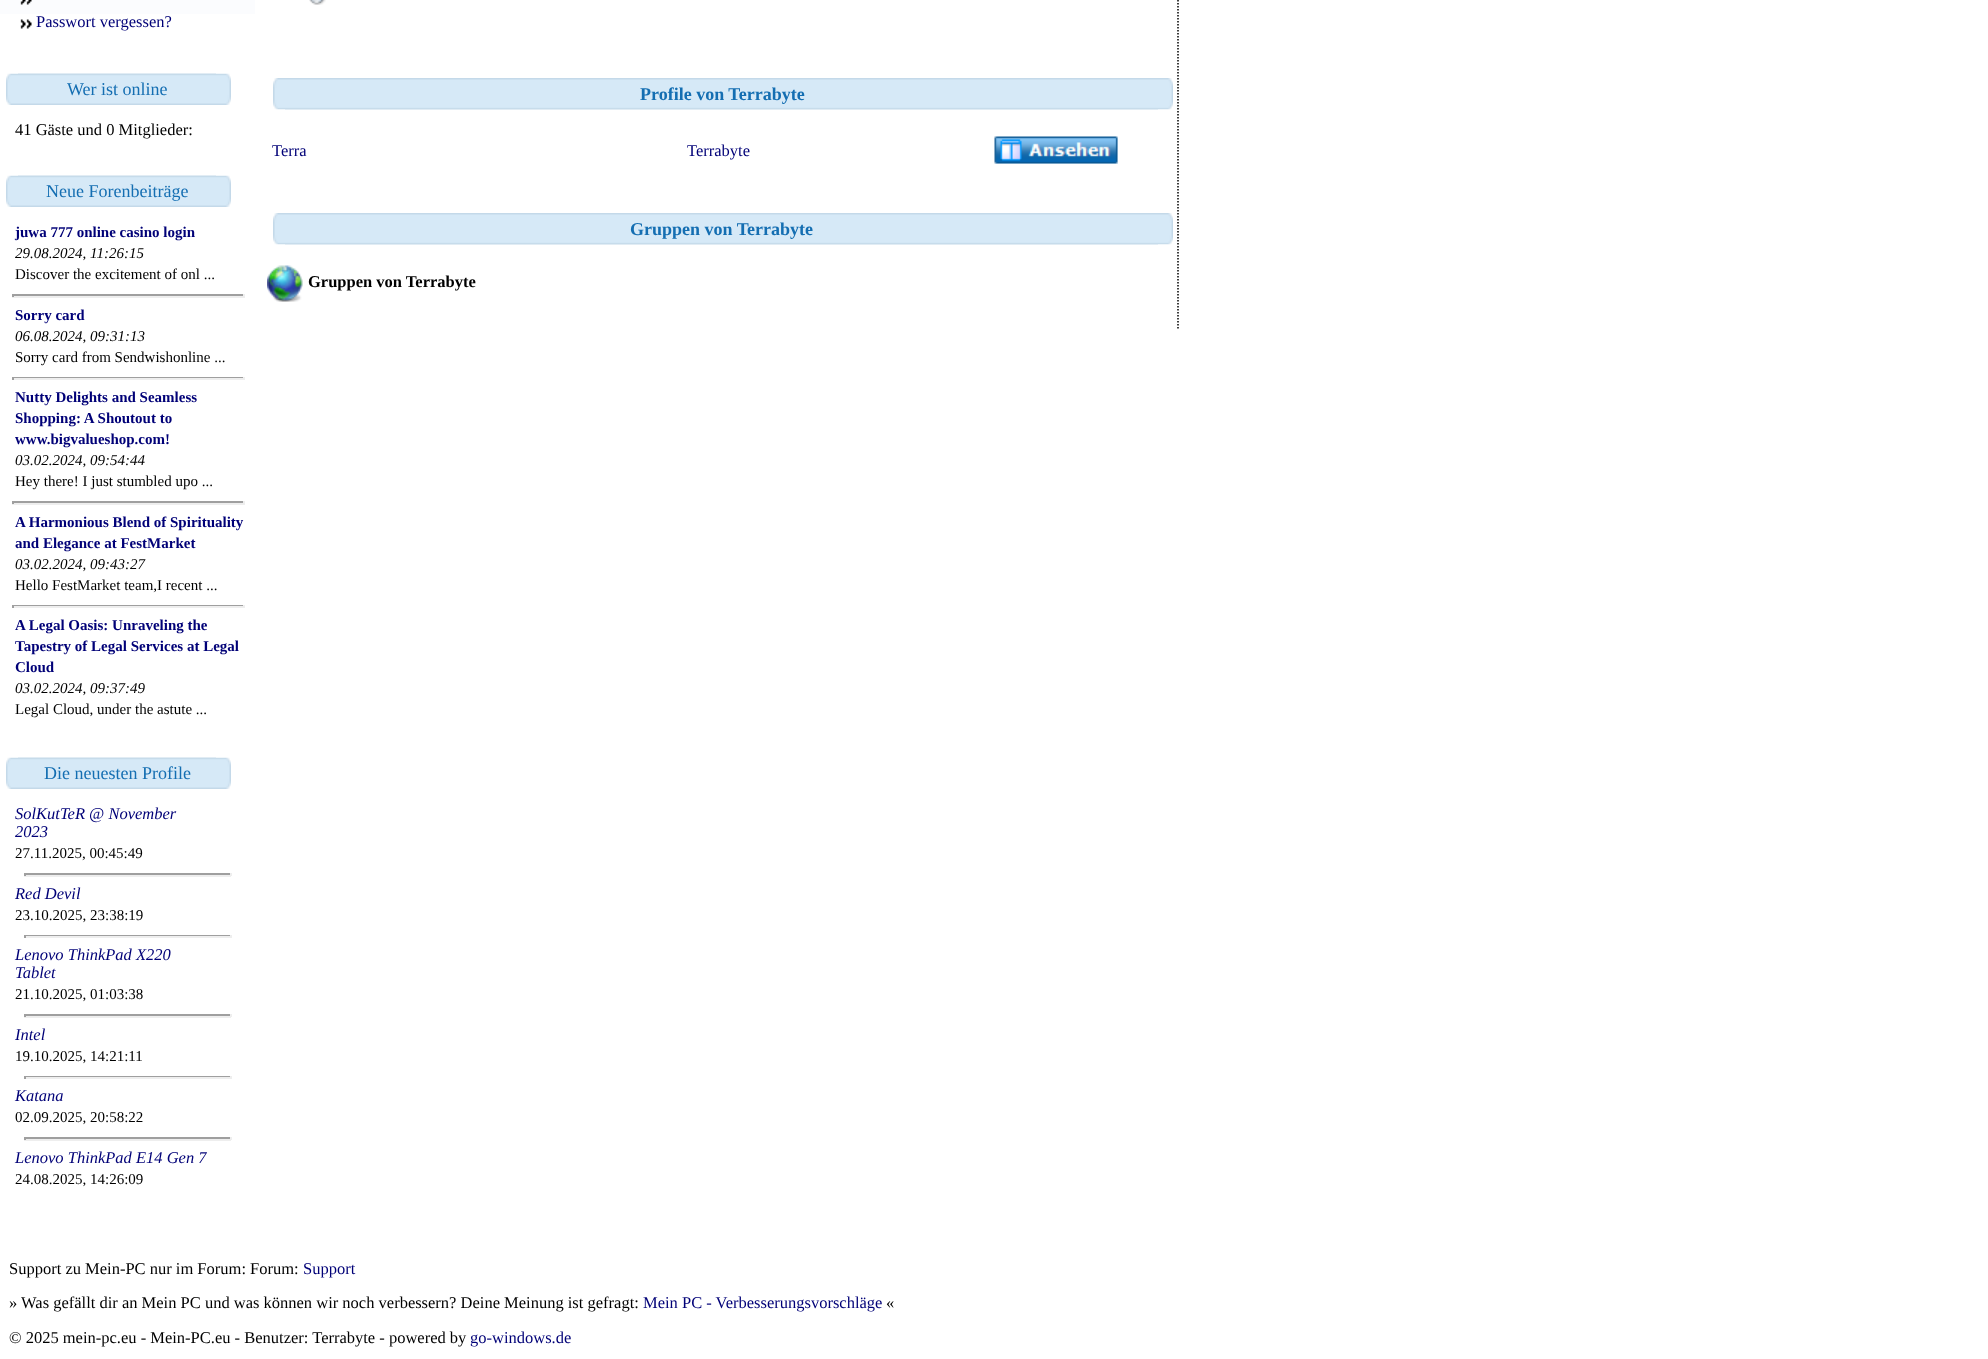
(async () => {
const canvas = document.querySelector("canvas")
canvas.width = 1988
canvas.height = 1359
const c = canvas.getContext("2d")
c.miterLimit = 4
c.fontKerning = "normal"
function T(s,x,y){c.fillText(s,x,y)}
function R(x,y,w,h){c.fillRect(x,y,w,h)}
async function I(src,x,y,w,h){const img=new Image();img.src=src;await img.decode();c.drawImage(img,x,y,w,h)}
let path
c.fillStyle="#fff"
R(0,0,1988,1359)
c.fillStyle="#fbfcfe"
R(0,0,255,14)
await I("1.png",20,0,12,5)
await I("2.png",20,19,12,10)
c.font="16.5px Liberation Serif"
c.fillStyle="#007"
T("Passwort vergessen?",36,27)
await I("3.png",6,73,12,32)
await I("4.png",18,73,198,32)
c.font="18px Liberation Serif"
c.fillStyle="#146eb2"
T("Wer ist online",67,95)
await I("5.png",216,73,15,32)
c.font="16.5px Liberation Serif"
c.fillStyle="#000"
T("41 Gäste und 0 Mitglieder:",15,135)
await I("3.png",6,175,12,32)
await I("4.png",18,175,198,32)
c.font="18px Liberation Serif"
c.fillStyle="#146eb2"
T("Neue Forenbeiträge",46,197)
await I("5.png",216,175,15,32)
c.font="bold 15px Liberation Serif"
c.fillStyle="#007"
T("juwa 777 online casino login",15,237)
c.font="italic 15px Liberation Serif"
c.fillStyle="#000"
T("29.08.2024, 11:26:15",15,258)
c.font="15px Liberation Serif"
T("Discover the excitement of onl ...",15,279)
c.fillStyle="#9f9f9f"
R(12,294,233,2)
c.fillStyle="#eee"
R(243,294,2,3)
R(12,296,233,2)
c.fillStyle="#9f9f9f"
R(12,294,2,3)
c.font="bold 15px Liberation Serif"
c.fillStyle="#007"
T("Sorry card",15,320)
c.font="italic 15px Liberation Serif"
c.fillStyle="#000"
T("06.08.2024, 09:31:13",15,341)
c.font="15px Liberation Serif"
T("Sorry card from Sendwishonline ...",15,362)
c.fillStyle="#9f9f9f"
R(12,377,233,1)
c.fillStyle="#eee"
R(243,377,2,3)
R(12,378,233,2)
c.fillStyle="#9f9f9f"
R(12,377,2,3)
c.font="bold 15px Liberation Serif"
c.fillStyle="#007"
T("Nutty Delights and Seamless",15,402)
T("Shopping: A Shoutout to",15,423)
T("www.bigvalueshop.com!",15,444)
c.font="italic 15px Liberation Serif"
c.fillStyle="#000"
T("03.02.2024, 09:54:44",15,465)
c.font="15px Liberation Serif"
T("Hey there! I just stumbled upo ...",15,486)
c.fillStyle="#9f9f9f"
R(12,501,233,2)
c.fillStyle="#eee"
R(243,501,2,3)
R(12,503,233,2)
c.fillStyle="#9f9f9f"
R(12,501,2,3)
c.font="bold 15px Liberation Serif"
c.fillStyle="#007"
T("A Harmonious Blend of Spirituality",15,527)
T("and Elegance at FestMarket",15,548)
c.font="italic 15px Liberation Serif"
c.fillStyle="#000"
T("03.02.2024, 09:43:27",15,569)
c.font="15px Liberation Serif"
T("Hello FestMarket team,I recent ...",15,590)
c.fillStyle="#9f9f9f"
R(12,605,233,1)
c.fillStyle="#eee"
R(243,605,2,3)
R(12,606,233,2)
c.fillStyle="#9f9f9f"
R(12,605,2,3)
c.font="bold 15px Liberation Serif"
c.fillStyle="#007"
T("A Legal Oasis: Unraveling the",15,630)
T("Tapestry of Legal Services at Legal",15,651)
T("Cloud",15,672)
c.font="italic 15px Liberation Serif"
c.fillStyle="#000"
T("03.02.2024, 09:37:49",15,693)
c.font="15px Liberation Serif"
T("Legal Cloud, under the astute ...",15,714)
await I("3.png",6,757,12,32)
await I("4.png",18,757,198,32)
c.font="18px Liberation Serif"
c.fillStyle="#146eb2"
T("Die neuesten Profile",44,779)
await I("5.png",216,757,15,32)
c.font="italic 16.5px Liberation Serif"
c.fillStyle="#007"
T("SolKutTeR @ November",15,819)
T("2023",15,837)
c.font="15px Liberation Serif"
c.fillStyle="#000"
T("27.11.2025, 00:45:49",15,858)
c.fillStyle="#9f9f9f"
R(24,873,207,2)
c.fillStyle="#eee"
R(230,873,2,3)
R(24,875,207,2)
c.fillStyle="#9f9f9f"
R(24,873,2,3)
c.font="italic 16.5px Liberation Serif"
c.fillStyle="#007"
T("Red Devil",15,899)
c.font="15px Liberation Serif"
c.fillStyle="#000"
T("23.10.2025, 23:38:19",15,920)
c.fillStyle="#9f9f9f"
R(24,935,207,1)
c.fillStyle="#eee"
R(230,935,2,3)
R(24,936,207,2)
c.fillStyle="#9f9f9f"
R(24,935,2,3)
c.font="italic 16.5px Liberation Serif"
c.fillStyle="#007"
T("Lenovo ThinkPad X220",15,960)
T("Tablet",15,978)
c.font="15px Liberation Serif"
c.fillStyle="#000"
T("21.10.2025, 01:03:38",15,999)
c.fillStyle="#9f9f9f"
R(24,1014,207,2)
c.fillStyle="#eee"
R(230,1014,2,3)
R(24,1016,207,2)
c.fillStyle="#9f9f9f"
R(24,1014,2,3)
c.font="italic 16.5px Liberation Serif"
c.fillStyle="#007"
T("Intel",15,1040)
c.font="15px Liberation Serif"
c.fillStyle="#000"
T("19.10.2025, 14:21:11",15,1061)
c.fillStyle="#9f9f9f"
R(24,1076,207,1)
c.fillStyle="#eee"
R(230,1076,2,3)
R(24,1077,207,2)
c.fillStyle="#9f9f9f"
R(24,1076,2,3)
c.font="italic 16.5px Liberation Serif"
c.fillStyle="#007"
T("Katana",15,1101)
c.font="15px Liberation Serif"
c.fillStyle="#000"
T("02.09.2025, 20:58:22",15,1122)
c.fillStyle="#9f9f9f"
R(24,1137,207,2)
c.fillStyle="#eee"
R(230,1137,2,3)
R(24,1139,207,2)
c.fillStyle="#9f9f9f"
R(24,1137,2,3)
c.font="italic 16.5px Liberation Serif"
c.fillStyle="#007"
T("Lenovo ThinkPad E14 Gen 7",15,1163)
c.font="15px Liberation Serif"
c.fillStyle="#000"
T("24.08.2025, 14:26:09",15,1184)
path = new Path2D("M1178-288v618")
c.strokeStyle="#000"
c.lineWidth=1.5
c.setLineDash([1.5,1.5])
c.stroke(path)
await I("6.png",309,0,17,5)
await I("7.png",273,78,12,32)
await I("8.png",285,78,873,32)
c.font="bold 18px Liberation Serif"
c.fillStyle="#146eb2"
T("Profile von Terrabyte",640,100)
await I("9.png",1158,78,15,32)
c.font="16.5px Liberation Serif"
c.fillStyle="#007"
T("Terra",272,156)
T("Terrabyte",687,156)
c.fillStyle="#e0eef9"
R(995,137,123,27)
await I("10.png",994,136,124,28)
await I("7.png",273,213,12,32)
await I("8.png",285,213,873,32)
c.font="bold 18px Liberation Serif"
c.fillStyle="#146eb2"
T("Gruppen von Terrabyte",630,235)
await I("9.png",1158,213,15,32)
await I("11.png",267,265,36,37)
c.font="bold 16.5px Liberation Serif"
c.fillStyle="#000"
T("Gruppen von Terrabyte",308,287)
c.font="16.5px Liberation Serif"
T("Support zu Mein-PC nur im Forum: Forum:",9,1274)
c.fillStyle="#007"
T("Support",303,1274)
c.fillStyle="#000"
T("» Was gefällt dir an Mein PC und was können wir noch verbessern? Deine Meinung ist gefragt:",9,1308)
c.fillStyle="#007"
T("Mein PC - Verbesserungsvorschläge",643,1308)
c.fillStyle="#000"
T("«",886,1308)
T("© 2025 mein-pc.eu - Mein-PC.eu - Benutzer: Terrabyte - powered by",9,1343)
c.fillStyle="#007"
T("go-windows.de",470,1343)
})()
